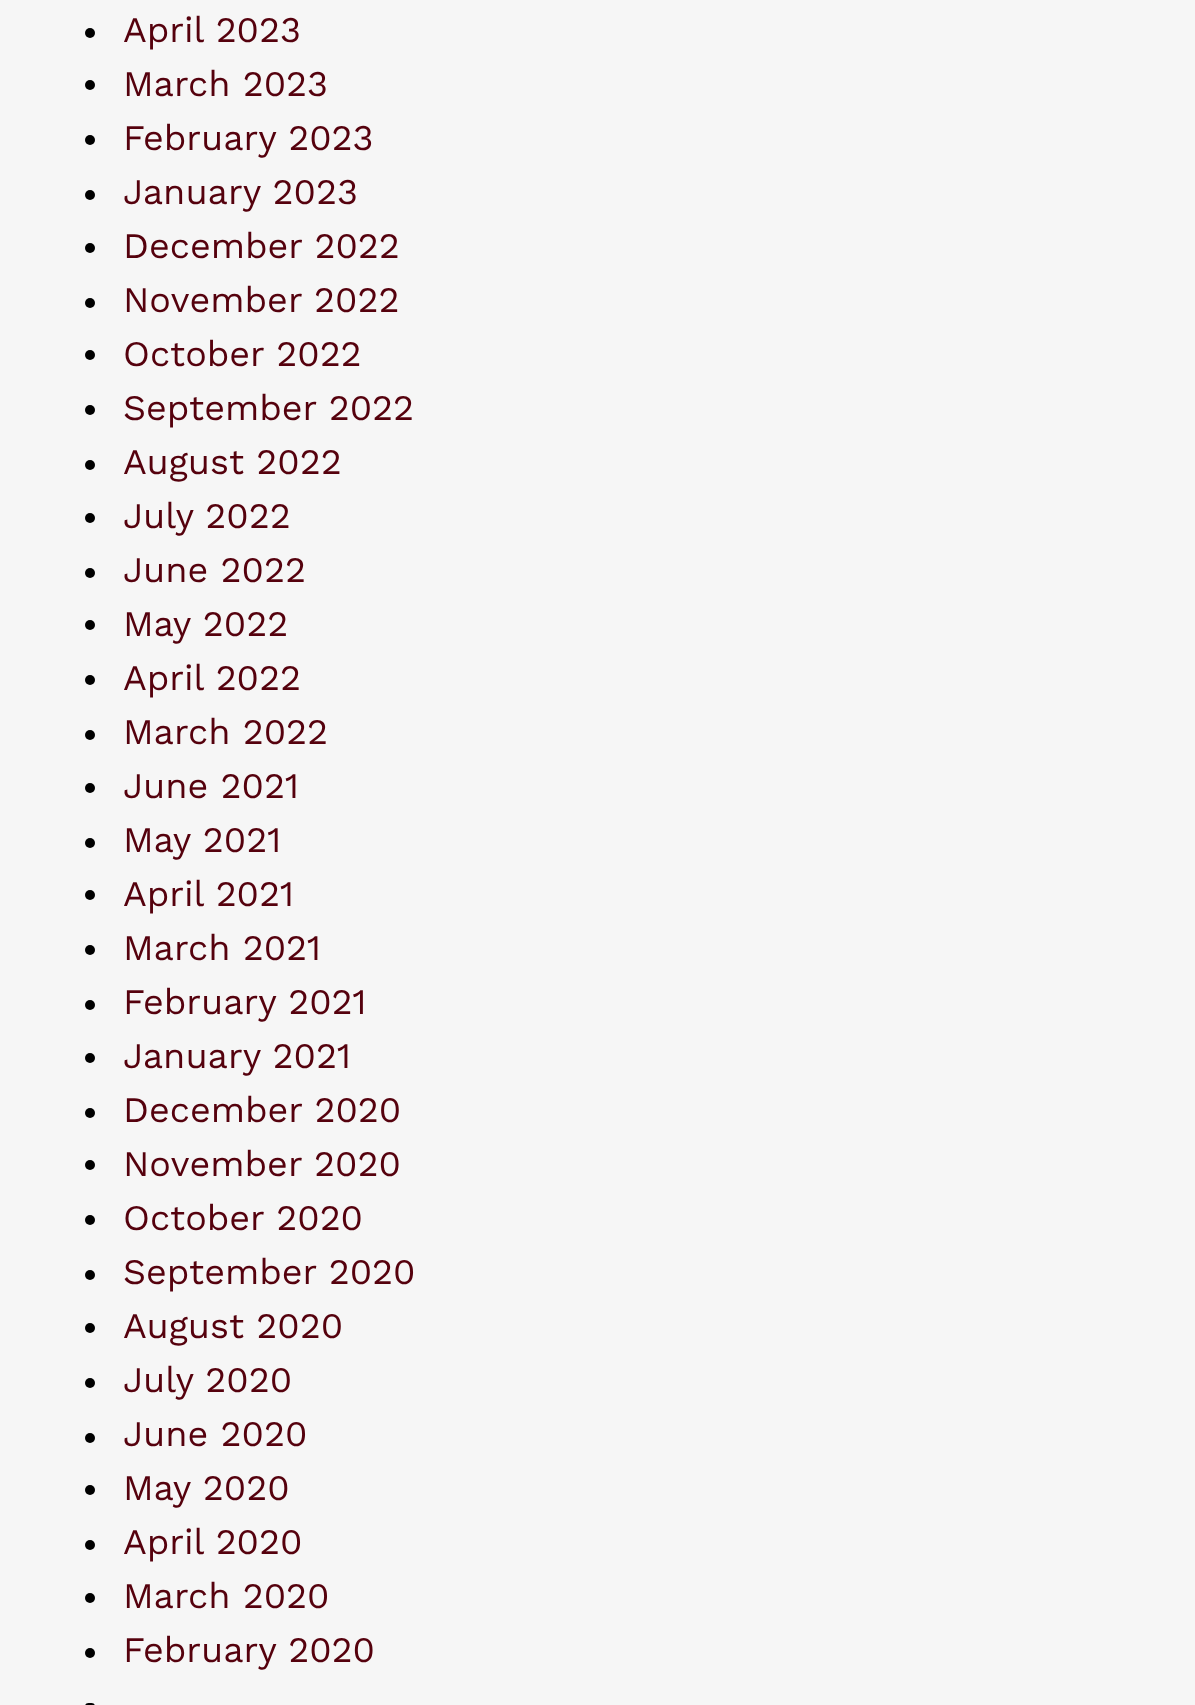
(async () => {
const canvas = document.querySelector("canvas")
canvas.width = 1195
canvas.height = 1705
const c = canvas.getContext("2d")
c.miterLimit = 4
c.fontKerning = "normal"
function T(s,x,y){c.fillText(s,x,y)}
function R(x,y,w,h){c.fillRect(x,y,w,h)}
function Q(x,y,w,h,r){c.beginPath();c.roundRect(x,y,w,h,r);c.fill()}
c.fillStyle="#f6f6f6"
R(0,0,1195,1705)
c.fillStyle="#000"
c.beginPath()
c.arc(90,33,5,0,7)
c.fill()
c.font="36px Work Sans"
c.fillStyle="#55010d"
T("April 2023",123,42)
c.fillStyle="#000"
c.beginPath()
c.arc(90,85,5,0,7)
c.fill()
c.fillStyle="#55010d"
T("March 2023",123,96)
c.fillStyle="#000"
c.beginPath()
c.arc(90,140,5,0,7)
c.fill()
c.fillStyle="#55010d"
T("February 2023",123,150)
c.fillStyle="#000"
c.beginPath()
c.arc(90,195,5,0,7)
c.fill()
c.fillStyle="#55010d"
T("January 2023",123,204)
c.fillStyle="#000"
c.beginPath()
c.arc(90,248,5,0,7)
c.fill()
c.fillStyle="#55010d"
T("December 2022",123,258)
c.fillStyle="#000"
c.beginPath()
c.arc(90,303,5,0,7)
c.fill()
c.fillStyle="#55010d"
T("November 2022",123,312)
c.fillStyle="#000"
c.beginPath()
c.arc(90,355,5,0,7)
c.fill()
c.fillStyle="#55010d"
T("October 2022",123,366)
c.fillStyle="#000"
c.beginPath()
c.arc(90,410,5,0,7)
c.fill()
c.fillStyle="#55010d"
T("September 2022",123,420)
c.fillStyle="#000"
c.beginPath()
c.arc(90,465,5,0,7)
c.fill()
c.fillStyle="#55010d"
T("August 2022",123,474)
c.fillStyle="#000"
c.beginPath()
c.arc(90,518,5,0,7)
c.fill()
c.fillStyle="#55010d"
T("July 2022",123,528)
c.fillStyle="#000"
c.beginPath()
c.arc(90,573,5,0,7)
c.fill()
c.fillStyle="#55010d"
T("June 2022",123,582)
c.fillStyle="#000"
c.beginPath()
c.arc(90,625,5,0,7)
c.fill()
c.fillStyle="#55010d"
T("May 2022",123,636)
c.fillStyle="#000"
c.beginPath()
c.arc(90,680,5,0,7)
c.fill()
c.fillStyle="#55010d"
T("April 2022",123,690)
c.fillStyle="#000"
c.beginPath()
c.arc(90,735,5,0,7)
c.fill()
c.fillStyle="#55010d"
T("March 2022",123,744)
c.fillStyle="#000"
c.beginPath()
c.arc(90,788,5,0,7)
c.fill()
c.fillStyle="#55010d"
T("June 2021",123,798)
c.fillStyle="#000"
c.beginPath()
c.arc(90,843,5,0,7)
c.fill()
c.fillStyle="#55010d"
T("May 2021",123,852)
c.fillStyle="#000"
c.beginPath()
c.arc(90,895,5,0,7)
c.fill()
c.fillStyle="#55010d"
T("April 2021",123,906)
c.fillStyle="#000"
c.beginPath()
c.arc(90,950,5,0,7)
c.fill()
c.fillStyle="#55010d"
T("March 2021",123,960)
c.fillStyle="#000"
c.beginPath()
c.arc(90,1005,5,0,7)
c.fill()
c.fillStyle="#55010d"
T("February 2021",123,1014)
c.fillStyle="#000"
c.beginPath()
c.arc(90,1058,5,0,7)
c.fill()
c.fillStyle="#55010d"
T("January 2021",123,1068)
c.fillStyle="#000"
c.beginPath()
c.arc(90,1113,5,0,7)
c.fill()
c.fillStyle="#55010d"
T("December 2020",123,1122)
c.fillStyle="#000"
c.beginPath()
c.arc(90,1165,5,0,7)
c.fill()
c.fillStyle="#55010d"
T("November 2020",123,1176)
c.fillStyle="#000"
c.beginPath()
c.arc(90,1220,5,0,7)
c.fill()
c.fillStyle="#55010d"
T("October 2020",123,1230)
c.fillStyle="#000"
c.beginPath()
c.arc(90,1275,5,0,7)
c.fill()
c.fillStyle="#55010d"
T("September 2020",123,1284)
c.fillStyle="#000"
c.beginPath()
c.arc(90,1328,5,0,7)
c.fill()
c.fillStyle="#55010d"
T("August 2020",123,1338)
c.fillStyle="#000"
c.beginPath()
c.arc(90,1383,5,0,7)
c.fill()
c.fillStyle="#55010d"
T("July 2020",123,1392)
c.fillStyle="#000"
c.beginPath()
c.arc(90,1438,5,0,7)
c.fill()
c.fillStyle="#55010d"
T("June 2020",123,1446)
c.fillStyle="#000"
c.beginPath()
c.arc(90,1490,5,0,7)
c.fill()
c.fillStyle="#55010d"
T("May 2020",123,1500)
c.fillStyle="#000"
c.beginPath()
c.arc(90,1545,5,0,7)
c.fill()
c.fillStyle="#55010d"
T("April 2020",123,1554)
c.fillStyle="#000"
c.beginPath()
c.arc(90,1598,5,0,7)
c.fill()
c.fillStyle="#55010d"
T("March 2020",123,1608)
c.fillStyle="#000"
c.beginPath()
c.arc(90,1653,5,0,7)
c.fill()
c.fillStyle="#55010d"
T("February 2020",123,1662)
c.fillStyle="#000"
Q(85,1703,10,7,5)
})()
